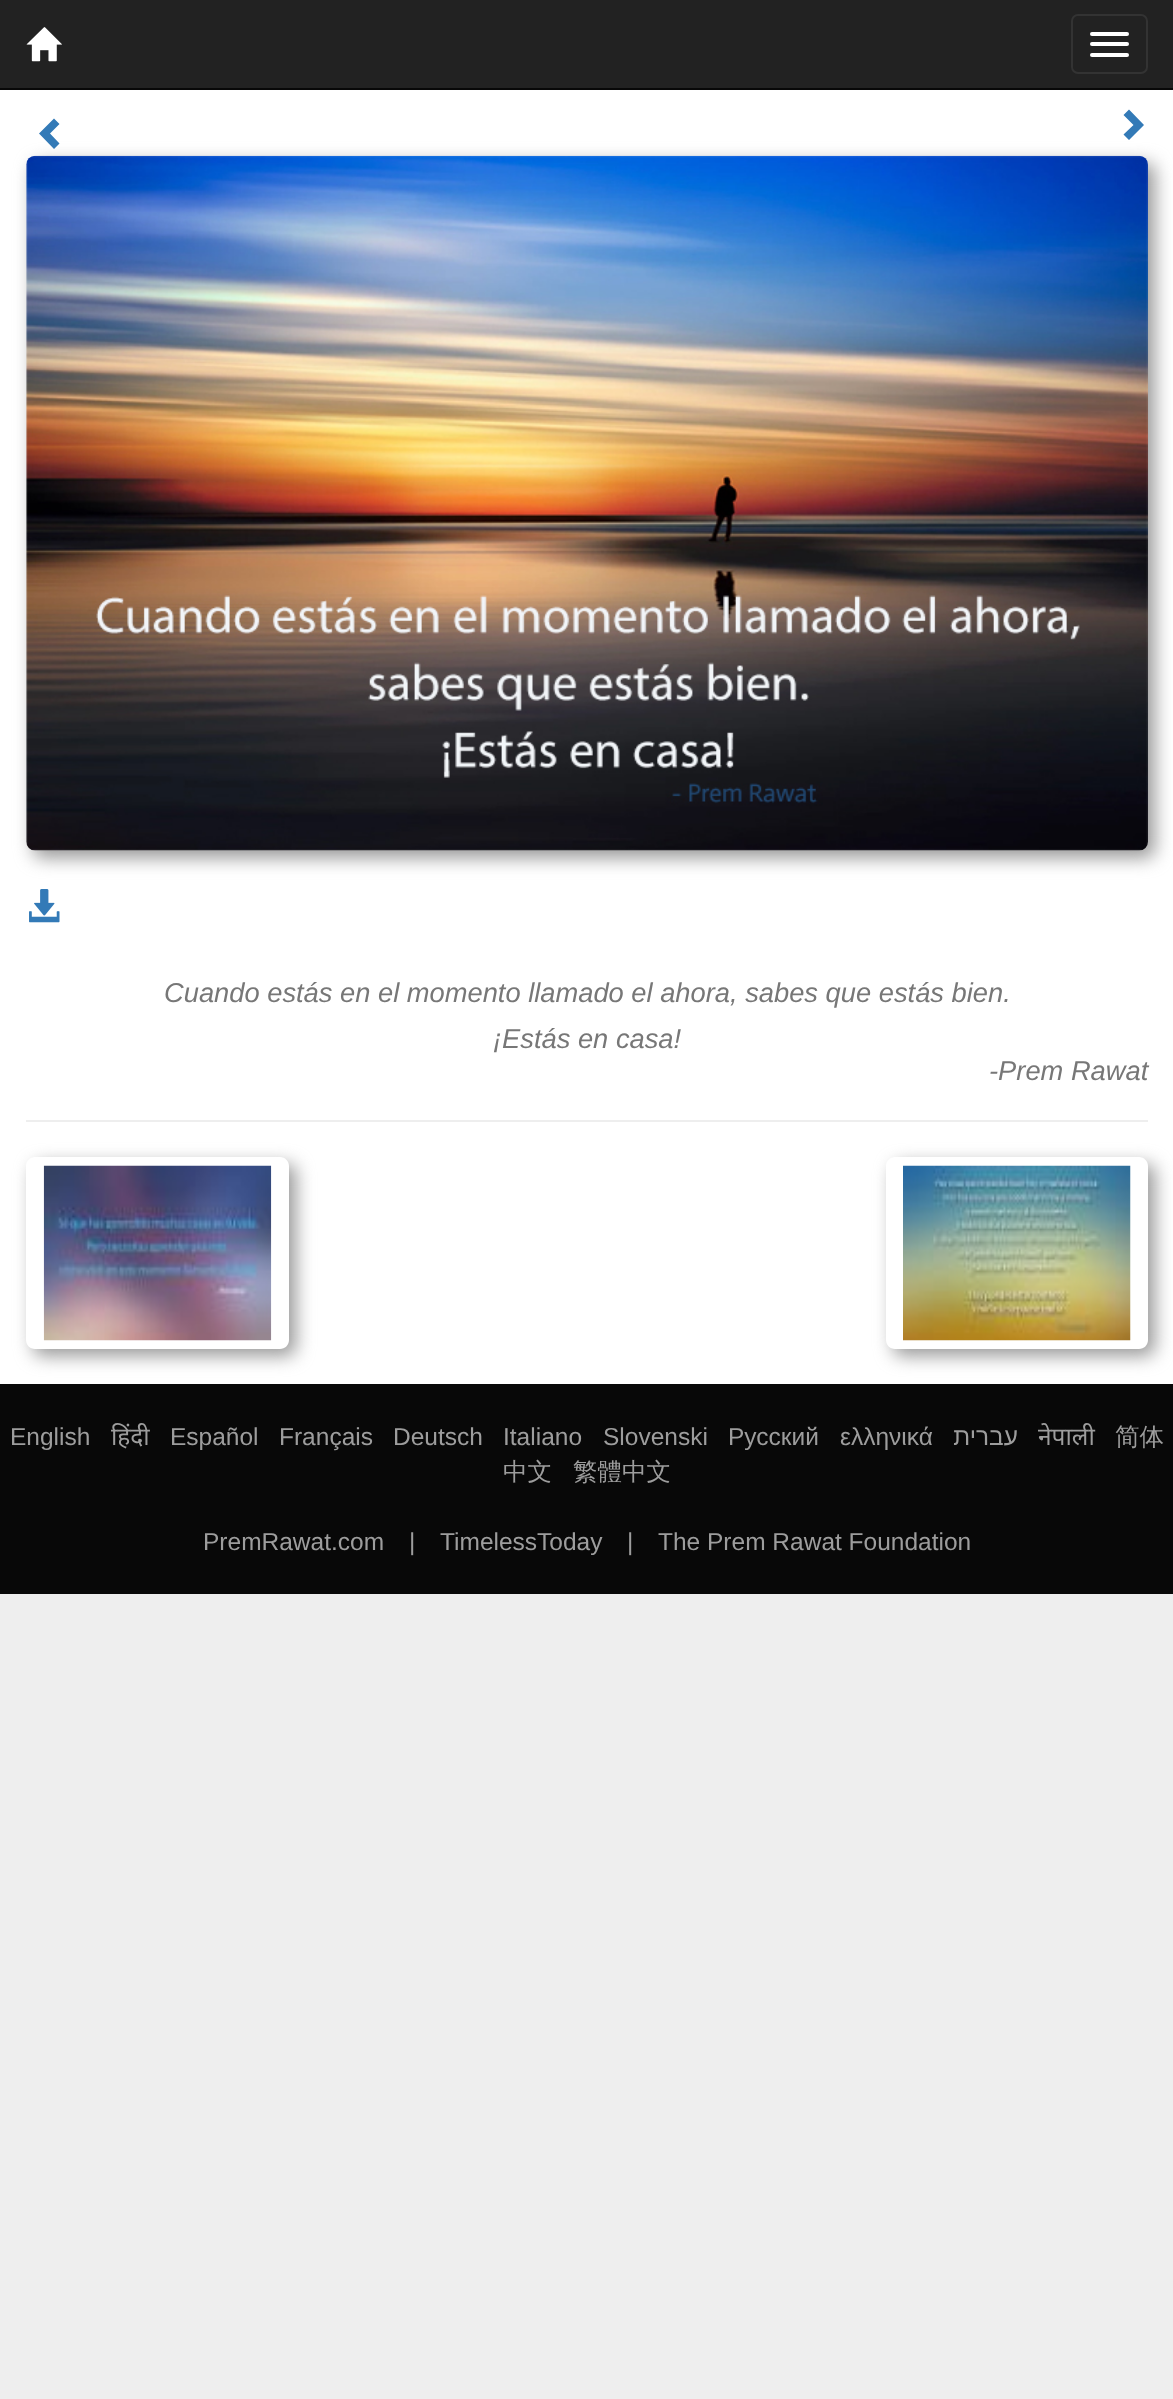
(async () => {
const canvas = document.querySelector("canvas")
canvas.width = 1173
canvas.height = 2399
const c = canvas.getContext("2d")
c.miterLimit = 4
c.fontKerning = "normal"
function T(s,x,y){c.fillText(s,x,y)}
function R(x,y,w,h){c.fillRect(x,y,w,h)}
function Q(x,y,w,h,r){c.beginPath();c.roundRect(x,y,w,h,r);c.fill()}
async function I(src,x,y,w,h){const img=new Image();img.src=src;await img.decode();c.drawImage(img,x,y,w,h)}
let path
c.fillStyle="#eee"
R(0,0,1173,2399)
c.fillStyle="#222"
R(0,0,1173,88)
c.fillStyle="#080808"
R(0,88,1173,2)
await I("1.png",26,27,36,35)
c.beginPath()
c.roundRect(1072,15,75,58,6)
c.strokeStyle="#333"
c.lineWidth=2
c.stroke()
c.fillStyle="#fff"
Q(1090,32,39,4,2)
Q(1090,42,39,4,2)
Q(1090,53,39,4,2)
R(0,90,1173,1294)
c.fillStyle="#999"
c.filter="blur(9px)"
c.beginPath()
c.roundRect(33,163,1122,695,9)
c.fill()
c.filter="none"
c.fillStyle="#337ab7"
path = new Path2D("M59.5 124l-9.5 9.5l9.5 10l-5.5 5.5l-15-15.5l15-15z")
c.fill(path)
path = new Path2D("M1144 125l-15 15l-5.5-5.5l10-9.5l-10-10l5.5-5.5z")
c.fill(path)
await I("2.png",26,155,1122,696)
await I("3.png",29,889,31,34)
c.font="italic 27.3px Liberation Sans"
c.fillStyle="#777"
T("Cuando estás en el momento llamado el ahora, sabes que estás bien.",164,1002)
T("¡Estás en casa!",493,1048)
T("-Prem Rawat",989,1080)
c.fillStyle="#eee"
R(26,1120,1122,2)
c.save()
path = new Path2D("M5 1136h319v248h-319zm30 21h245c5 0 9 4 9 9v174c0 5-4 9-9 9h-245c-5 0-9-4-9-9v-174c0-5 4-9 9-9z")
c.clip(path,"evenodd")
c.fillStyle="#999"
c.filter="blur(9px)"
c.beginPath()
c.roundRect(33,1164,263,192,9)
c.fill()
c.filter="none"
c.restore()
await I("4.png",43,1165,229,176)
c.save()
path = new Path2D("M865 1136h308v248h-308zm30 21h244c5 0 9 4 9 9v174c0 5-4 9-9 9h-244c-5 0-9-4-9-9v-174c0-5 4-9 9-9z")
c.clip(path,"evenodd")
c.fillStyle="#999"
c.filter="blur(9px)"
c.beginPath()
c.roundRect(893,1164,262,192,9)
c.fill()
c.filter="none"
c.restore()
await I("5.png",903,1165,228,176)
c.fillStyle="#080808"
R(0,1384,1173,210)
c.font="24.5px Liberation Sans"
c.fillStyle="#9d9d9d"
T("English",10,1445)
c.font="24.5px Noto Sans"
T("हिंदी",111,1445)
c.font="24.5px Liberation Sans"
T("Español",170,1445)
T("Français",279,1445)
T("Deutsch",393,1445)
T("Italiano",503,1445)
T("Slovenski",603,1445)
T("Русский",728,1445)
T("ελληνικά",840,1445)
c.direction="rtl"
T("עברית",1018,1445)
c.direction="ltr"
c.font="24.5px Noto Sans"
T("नेपाली",1038,1445)
c.font="500 24.5px WenQuanYi Zen Hei"
T("简体",1115,1445)
T("中文",503,1480)
T("繁體中文",573,1480)
c.font="24.5px Liberation Sans"
T("PremRawat.com",203,1550)
T("|",409,1550)
T("TimelessToday",440,1550)
T("|",627,1550)
T("The Prem Rawat Foundation",658,1550)
})()
